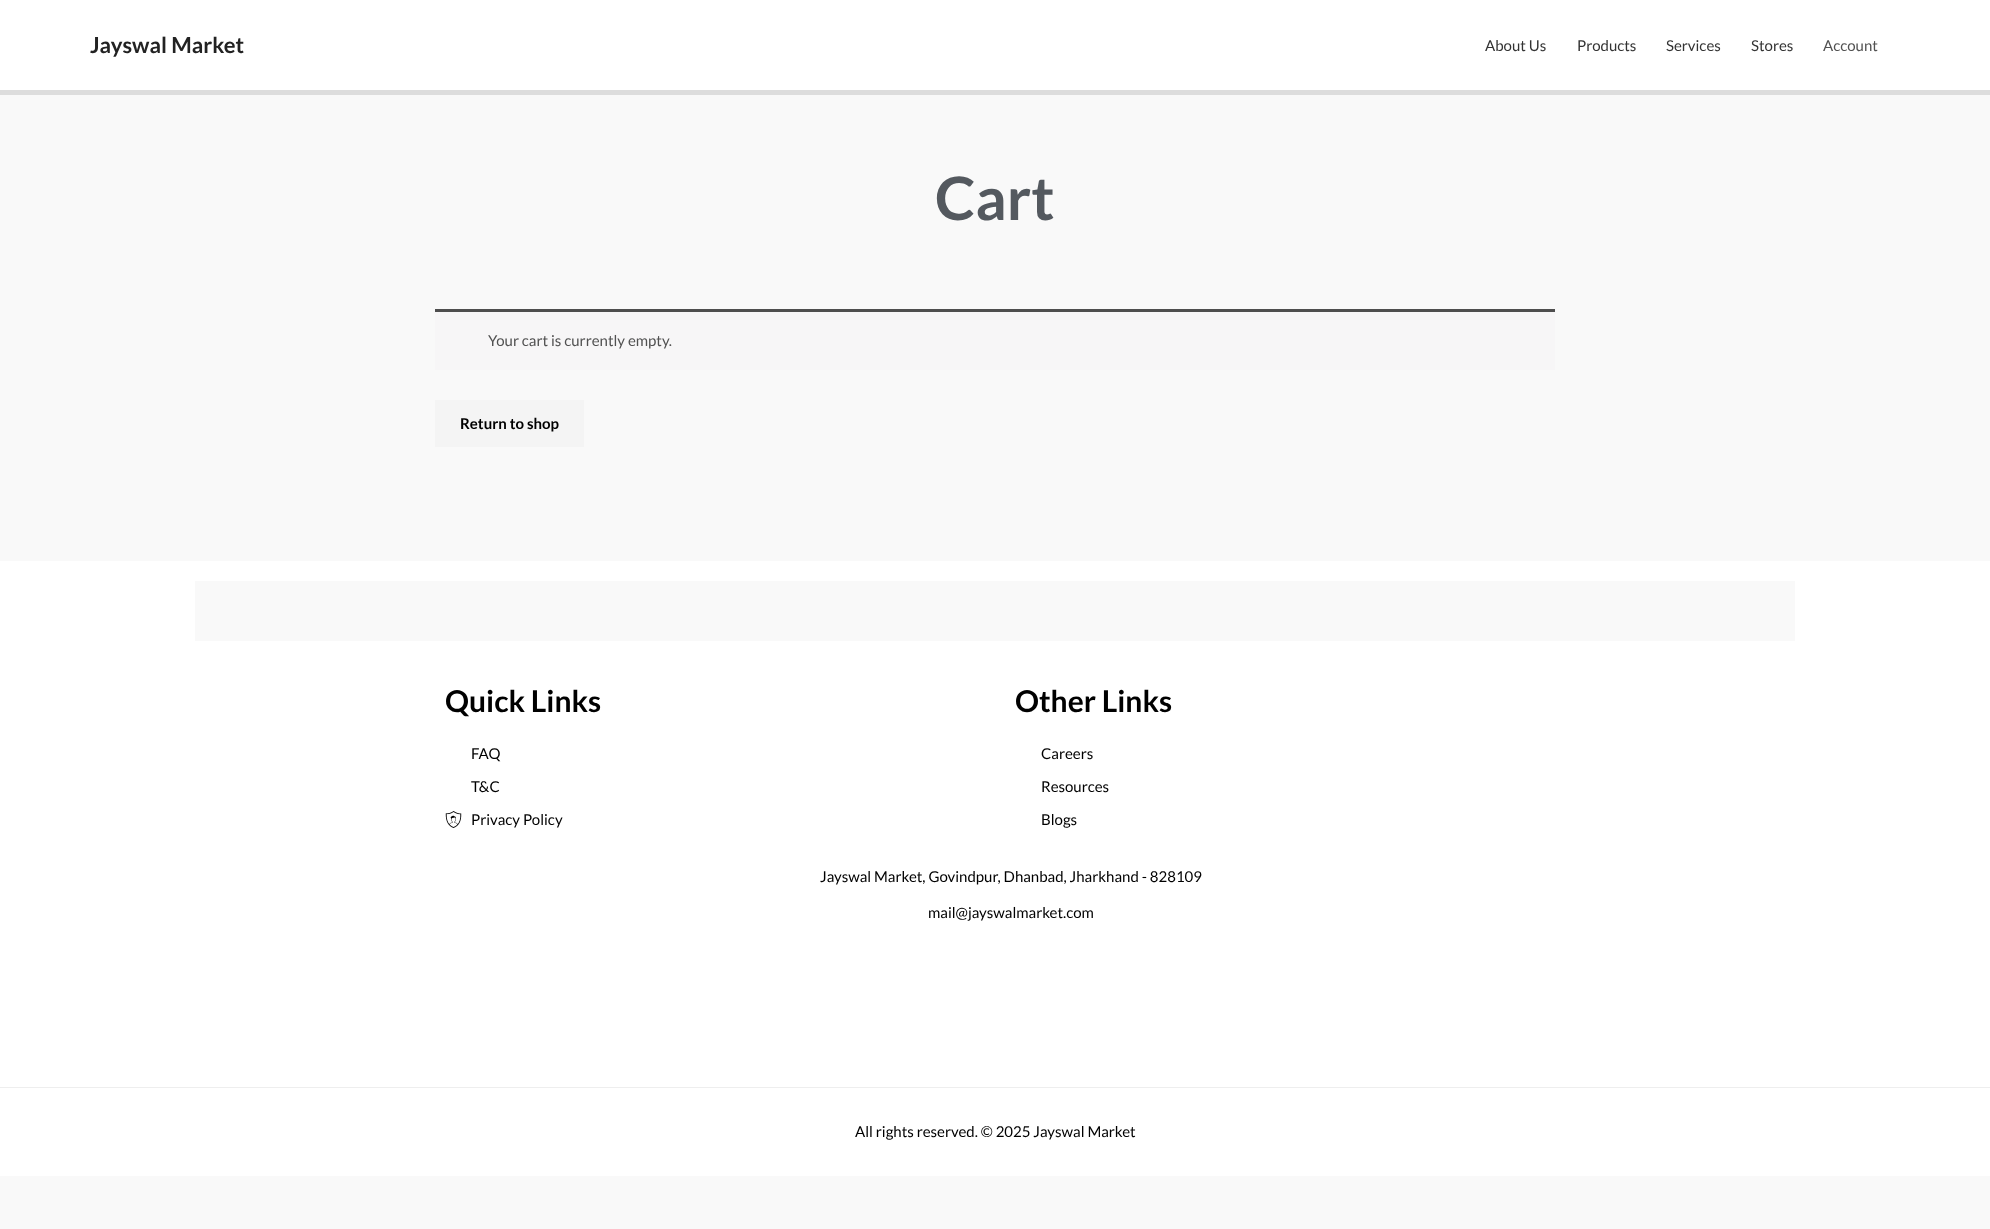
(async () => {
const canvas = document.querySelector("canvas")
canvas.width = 1990
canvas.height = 1229
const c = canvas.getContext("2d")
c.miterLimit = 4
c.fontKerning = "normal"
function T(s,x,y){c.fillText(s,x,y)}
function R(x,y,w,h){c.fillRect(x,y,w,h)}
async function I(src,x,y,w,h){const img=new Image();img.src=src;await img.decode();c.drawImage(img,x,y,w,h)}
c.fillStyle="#f9f9f9"
R(0,0,1990,1229)
c.fillStyle="#fff"
R(0,0,1990,90)
c.fillStyle="#ddd"
R(0,90,1990,5)
c.font="bold 22px Lato"
c.fillStyle="#222"
T("Jayswal Market",90,53)
c.font="15px Lato"
c.fillStyle="#333"
T("About Us",1485,51)
T("Products",1577,51)
T("Services",1666,51)
T("Stores",1751,51)
c.fillStyle="#515151"
T("Account",1823,51)
c.font="bold 60px Lato"
c.fillStyle="#54595f"
T("Cart",935,220)
c.fillStyle="#f7f6f7"
R(435,312,1120,58)
c.fillStyle="#4e4e4e"
R(435,309,1120,3)
c.font="15px Lato"
c.fillStyle="#515151"
T("Your cart is currently empty.",488,346)
c.fillStyle="#f4f4f4"
R(435,400,149,47)
c.font="bold 15px Lato"
c.fillStyle="#000"
T("Return to shop",460,429)
c.fillStyle="#fff"
R(0,561,1990,526)
c.fillStyle="#f9f9f9"
R(195,581,1600,60)
c.font="bold 30px Lato"
c.fillStyle="#000"
T("Quick Links",445,712)
c.font="15px Lato"
T("FAQ",471,759)
T("T&C",471,792)
await I("1.png",445,811,17,17)
T("Privacy Policy",471,825)
c.font="bold 30px Lato"
T("Other Links",1015,712)
c.font="15px Lato"
T("Careers",1041,759)
T("Resources",1041,792)
T("Blogs",1041,825)
T("Jayswal Market, Govindpur, Dhanbad, Jharkhand - 828109",820,882)
T("mail@jayswalmarket.com",928,918)
c.fillStyle="#fff"
R(0,1088,1990,88)
c.fillStyle="#eee"
R(0,1087,1990,1)
c.fillStyle="#000"
T("All rights reserved. © 2025 Jayswal Market",855,1137)
})()
